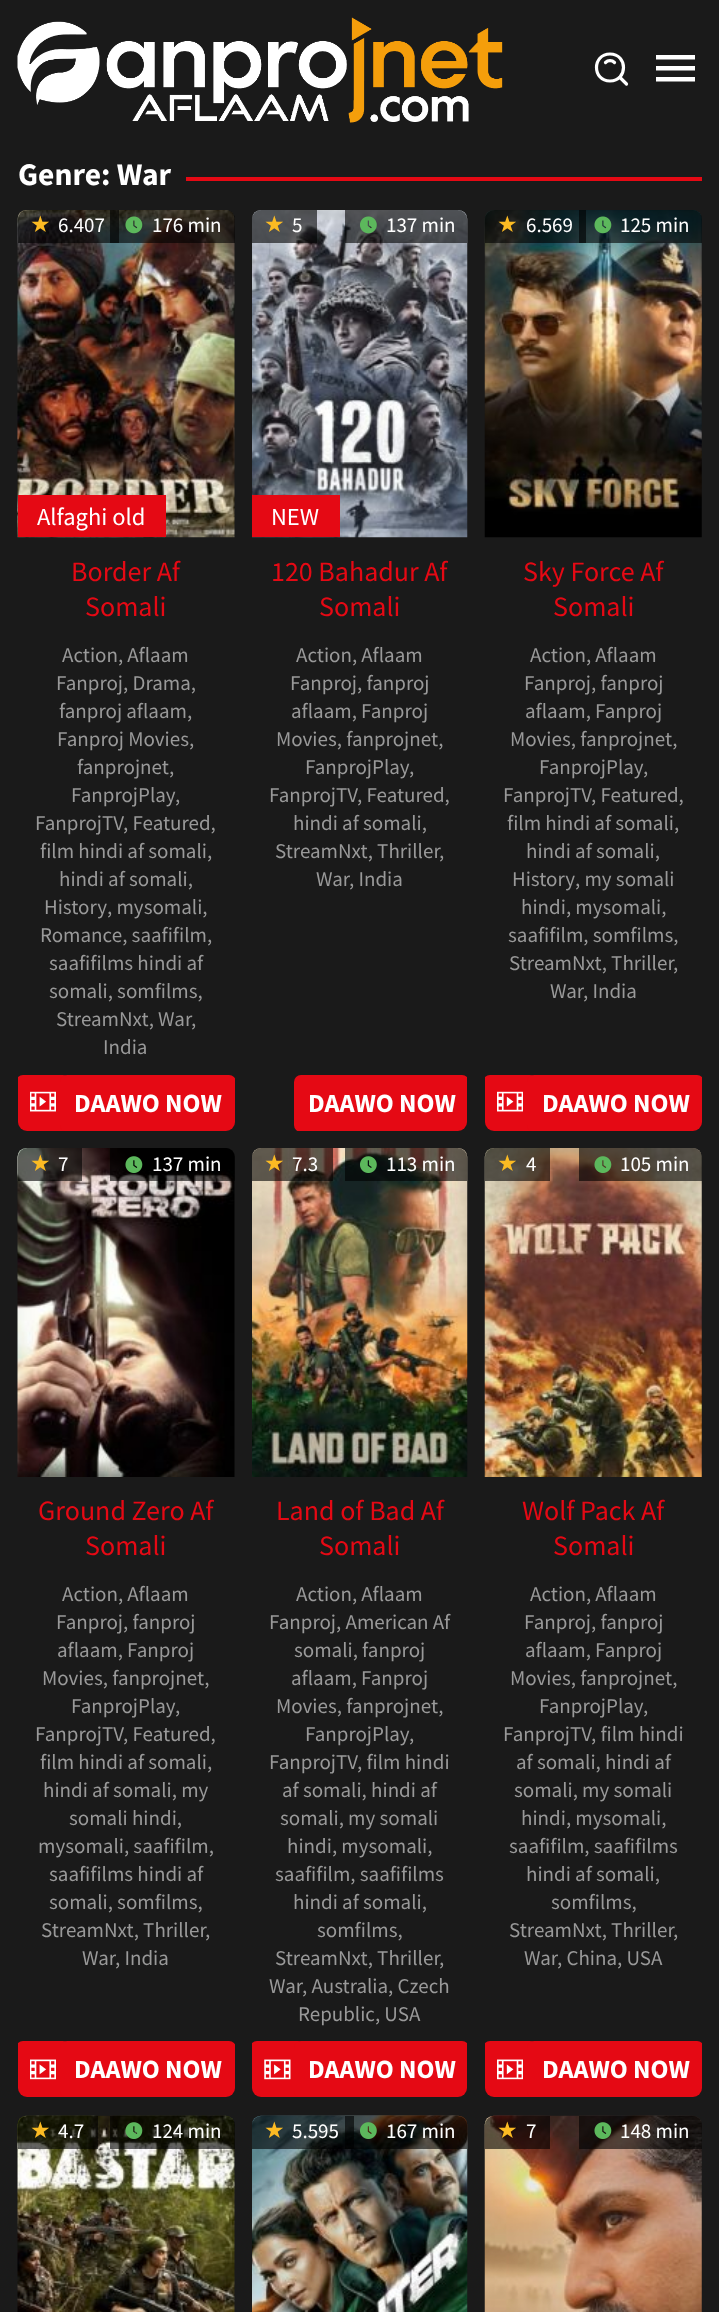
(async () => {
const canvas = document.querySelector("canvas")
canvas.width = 719
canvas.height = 2312
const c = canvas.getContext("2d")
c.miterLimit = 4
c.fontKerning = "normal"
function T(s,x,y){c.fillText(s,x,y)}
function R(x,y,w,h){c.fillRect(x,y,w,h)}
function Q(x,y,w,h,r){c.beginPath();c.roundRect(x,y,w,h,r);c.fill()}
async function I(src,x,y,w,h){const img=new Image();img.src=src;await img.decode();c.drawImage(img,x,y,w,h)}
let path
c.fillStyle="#1a1a1a"
R(0,0,719,2312)
await I("1.png",17,17,486,106)
path = new Path2D("M610 81c18 0 18-27 0-27c-18 0-18 27 0 27z")
c.strokeStyle="#fff"
c.lineWidth=3.2
c.lineJoin="round"
c.stroke(path)
path = new Path2D("M614.5 62.5c-2.5-2.5-6.5-2.5-9 0m14.5 15l6.5 6.5")
c.lineCap="round"
c.stroke(path)
c.fillStyle="#fff"
path = new Path2D("M695 55v4.5h-39v-4.5zm-39 26.5h39v-4.5h-39zm0-11h39v-4.5h-39z")
c.fill(path)
c.font="bold 31.5px Source Sans Pro"
T("Genre: War",18,185)
c.fillStyle="#e50914"
R(186,177,516,4)
await I("2.png",17,210,218,328)
c.fillStyle="#00000099"
c.beginPath()
c.roundRect(18,210,101,33,[9,0,0,0])
c.fill()
c.font="23px DejaVu Sans"
c.fillStyle="#fcbb23"
T("★",30,232)
c.font="21px Source Sans Pro"
c.fillStyle="#fff"
T("6.407",58,232)
c.fillStyle="#00000099"
c.beginPath()
c.roundRect(110,210,125,33,[0,9,0,0])
c.fill()
await I("3.png",125,216,18,18)
c.fillStyle="#fff"
T("176 min",152,232)
c.fillStyle="#e50914"
R(18,495,148,42)
c.font="24.5px Source Sans Pro"
c.fillStyle="#fff"
T("Alfaghi old",37,525)
c.font="28px Source Sans Pro"
c.fillStyle="#e50914"
T("Border Af",71,581)
T("Somali",85,616)
c.font="21px Source Sans Pro"
c.fillStyle="#999"
T("Action, Aflaam",62,662)
T("Fanproj, Drama,",56,690)
T("fanproj aflaam,",59,718)
T("Fanproj Movies,",57,746)
T("fanprojnet,",77,774)
T("FanprojPlay",71,802)
T(",",175,802)
T("FanprojTV",35,830)
T(", Featured,",123,830)
T("film hindi af somali,",40,858)
T("hindi af somali,",59,886)
T("History",44,914)
T(", mysomali,",107,914)
T("Romance, saafifilm,",40,942)
T("saafifilms hindi af",49,970)
T("somali, somfilms,",49,998)
T("StreamNxt, War",56,1026)
T(",",191,1026)
T("India",103,1054)
c.save()
c.beginPath()
c.roundRect(18,210,217,921,9)
c.clip()
c.fillStyle="#e50914"
Q(16,1075,54,57,7)
c.restore()
await I("4.png",30,1091,26,21)
c.save()
c.beginPath()
c.roundRect(18,210,217,921,9)
c.clip()
c.fillStyle="#e50914"
Q(60,1075,176,57,7)
c.restore()
c.font="bold 26.25px Source Sans Pro"
c.fillStyle="#fff"
T("DAAWO NOW",74,1112)
await I("5.png",252,210,216,328)
c.fillStyle="#00000099"
c.beginPath()
c.roundRect(252,210,65,33,[9,0,0,0])
c.fill()
c.font="23px DejaVu Sans"
c.fillStyle="#fcbb23"
T("★",264,232)
c.font="21px Source Sans Pro"
c.fillStyle="#fff"
T("5",292,232)
c.fillStyle="#00000099"
c.beginPath()
c.roundRect(345,210,122,33,[0,9,0,0])
c.fill()
await I("6.png",360,216,17,18)
c.fillStyle="#fff"
T("137 min",386,232)
c.fillStyle="#e50914"
R(252,495,88,42)
c.font="24.5px Source Sans Pro"
c.fillStyle="#fff"
T("NEW",271,525)
c.font="28px Source Sans Pro"
c.fillStyle="#e50914"
T("120 Bahadur Af",271,581)
T("Somali",319,616)
c.font="21px Source Sans Pro"
c.fillStyle="#999"
T("Action, Aflaam",296,662)
T("Fanproj, fanproj",290,690)
T("aflaam, Fanproj",291,718)
T("Movies, fanprojnet,",276,746)
T("FanprojPlay",305,774)
T(",",409,774)
T("FanprojTV",269,802)
T(", Featured,",357,802)
T("hindi af somali,",293,830)
T("StreamNxt, Thriller",275,858)
T(",",439,858)
T("War",316,886)
T(", India",349,886)
c.save()
c.beginPath()
c.roundRect(252,210,215,921,9)
c.clip()
c.fillStyle="#e50914"
Q(294,1075,175,57,7)
c.restore()
c.font="bold 26.25px Source Sans Pro"
c.fillStyle="#fff"
T("DAAWO NOW",308,1112)
await I("7.png",484,210,218,328)
c.fillStyle="#00000099"
c.beginPath()
c.roundRect(485,210,101,33,[9,0,0,0])
c.fill()
c.font="23px DejaVu Sans"
c.fillStyle="#fcbb23"
T("★",497,232)
c.font="21px Source Sans Pro"
c.fillStyle="#fff"
T("6.569",526,232)
c.fillStyle="#00000099"
c.beginPath()
c.roundRect(579,210,123,33,[0,9,0,0])
c.fill()
await I("8.png",594,216,18,18)
c.fillStyle="#fff"
T("125 min",620,232)
c.font="28px Source Sans Pro"
c.fillStyle="#e50914"
T("Sky Force Af",523,581)
T("Somali",553,616)
c.font="21px Source Sans Pro"
c.fillStyle="#999"
T("Action, Aflaam",530,662)
T("Fanproj, fanproj",524,690)
T("aflaam, Fanproj",525,718)
T("Movies, fanprojnet,",510,746)
T("FanprojPlay",539,774)
T(",",643,774)
T("FanprojTV",503,802)
T(", Featured,",591,802)
T("film hindi af somali,",507,830)
T("hindi af somali,",526,858)
T("History",512,886)
T(", my somali",575,886)
T("hindi, mysomali,",521,914)
T("saafifilm, somfilms,",508,942)
T("StreamNxt, Thriller",509,970)
T(",",673,970)
T("War",550,998)
T(", India",583,998)
c.save()
c.beginPath()
c.roundRect(485,210,217,921,9)
c.clip()
c.fillStyle="#e50914"
Q(483,1075,54,57,7)
c.restore()
await I("9.png",497,1091,26,21)
c.save()
c.beginPath()
c.roundRect(485,210,217,921,9)
c.clip()
c.fillStyle="#e50914"
Q(527,1075,177,57,7)
c.restore()
c.font="bold 26.25px Source Sans Pro"
c.fillStyle="#fff"
T("DAAWO NOW",542,1112)
await I("10.png",17,1148,218,329)
c.fillStyle="#00000099"
c.beginPath()
c.roundRect(18,1148,64,33,[9,0,0,0])
c.fill()
c.font="23px DejaVu Sans"
c.fillStyle="#fcbb23"
T("★",30,1171)
c.font="21px Source Sans Pro"
c.fillStyle="#fff"
T("7",58,1171)
c.fillStyle="#00000099"
c.beginPath()
c.roundRect(110,1148,125,33,[0,9,0,0])
c.fill()
await I("11.png",125,1156,18,17)
c.fillStyle="#fff"
T("137 min",152,1171)
c.font="28px Source Sans Pro"
c.fillStyle="#e50914"
T("Ground Zero Af",38,1520)
T("Somali",85,1555)
c.font="21px Source Sans Pro"
c.fillStyle="#999"
T("Action, Aflaam",62,1601)
T("Fanproj, fanproj",56,1629)
T("aflaam, Fanproj",57,1657)
T("Movies, fanprojnet,",42,1685)
T("FanprojPlay",71,1713)
T(",",175,1713)
T("FanprojTV",35,1741)
T(", Featured,",123,1741)
T("film hindi af somali,",40,1769)
T("hindi af somali, my",43,1797)
T("somali hindi,",69,1825)
T("mysomali, saafifilm,",38,1853)
T("saafifilms hindi af",49,1881)
T("somali, somfilms,",49,1909)
T("StreamNxt, Thriller",41,1937)
T(",",205,1937)
T("War",82,1965)
T(", India",115,1965)
c.save()
c.beginPath()
c.roundRect(18,1148,217,949,9)
c.clip()
c.fillStyle="#e50914"
Q(16,2041,54,57,7)
c.restore()
await I("12.png",30,2059,26,21)
c.save()
c.beginPath()
c.roundRect(18,1148,217,949,9)
c.clip()
c.fillStyle="#e50914"
Q(60,2041,176,57,7)
c.restore()
c.font="bold 26.25px Source Sans Pro"
c.fillStyle="#fff"
T("DAAWO NOW",74,2078)
await I("13.png",252,1148,216,329)
c.fillStyle="#00000099"
c.beginPath()
c.roundRect(252,1148,81,33,[9,0,0,0])
c.fill()
c.font="23px DejaVu Sans"
c.fillStyle="#fcbb23"
T("★",264,1171)
c.font="21px Source Sans Pro"
c.fillStyle="#fff"
T("7.3",292,1171)
c.fillStyle="#00000099"
c.beginPath()
c.roundRect(345,1148,122,33,[0,9,0,0])
c.fill()
await I("14.png",360,1156,17,17)
c.fillStyle="#fff"
T("113 min",386,1171)
c.font="28px Source Sans Pro"
c.fillStyle="#e50914"
T("Land of Bad Af",276,1520)
T("Somali",319,1555)
c.font="21px Source Sans Pro"
c.fillStyle="#999"
T("Action, Aflaam",296,1601)
T("Fanproj, American Af",269,1629)
T("somali, fanproj",294,1657)
T("aflaam, Fanproj",291,1685)
T("Movies, fanprojnet,",276,1713)
T("FanprojPlay",305,1741)
T(",",409,1741)
T("FanprojTV",269,1769)
T(", film hindi",357,1769)
T("af somali, hindi af",282,1797)
T("somali, my somali",280,1825)
T("hindi, mysomali,",287,1853)
T("saafifilm, saafifilms",275,1881)
T("hindi af somali,",293,1909)
T("somfilms,",317,1937)
T("StreamNxt, Thriller",275,1965)
T(",",439,1965)
T("War",269,1993)
T(", Australia, Czech",302,1993)
T("Republic, USA",298,2021)
c.save()
c.beginPath()
c.roundRect(252,1148,215,949,9)
c.clip()
c.fillStyle="#e50914"
Q(250,2041,55,57,7)
c.restore()
await I("15.png",264,2059,27,21)
c.save()
c.beginPath()
c.roundRect(252,1148,215,949,9)
c.clip()
c.fillStyle="#e50914"
Q(294,2041,175,57,7)
c.restore()
c.font="bold 26.25px Source Sans Pro"
c.fillStyle="#fff"
T("DAAWO NOW",308,2078)
await I("16.png",484,1148,218,329)
c.fillStyle="#00000099"
c.beginPath()
c.roundRect(485,1148,65,33,[9,0,0,0])
c.fill()
c.font="23px DejaVu Sans"
c.fillStyle="#fcbb23"
T("★",497,1171)
c.font="21px Source Sans Pro"
c.fillStyle="#fff"
T("4",526,1171)
c.fillStyle="#00000099"
c.beginPath()
c.roundRect(579,1148,123,33,[0,9,0,0])
c.fill()
await I("17.png",594,1156,18,17)
c.fillStyle="#fff"
T("105 min",620,1171)
c.font="28px Source Sans Pro"
c.fillStyle="#e50914"
T("Wolf Pack Af",522,1520)
T("Somali",553,1555)
c.font="21px Source Sans Pro"
c.fillStyle="#999"
T("Action, Aflaam",530,1601)
T("Fanproj, fanproj",524,1629)
T("aflaam, Fanproj",525,1657)
T("Movies, fanprojnet,",510,1685)
T("FanprojPlay",539,1713)
T(",",643,1713)
T("FanprojTV",503,1741)
T(", film hindi",591,1741)
T("af somali, hindi af",516,1769)
T("somali, my somali",514,1797)
T("hindi, mysomali,",521,1825)
T("saafifilm, saafifilms",509,1853)
T("hindi af somali,",526,1881)
T("somfilms,",551,1909)
T("StreamNxt, Thriller",509,1937)
T(",",673,1937)
T("War",524,1965)
T(", China, USA",557,1965)
c.save()
c.beginPath()
c.roundRect(485,1148,217,949,9)
c.clip()
c.fillStyle="#e50914"
Q(483,2041,54,57,7)
c.restore()
await I("18.png",497,2059,26,21)
c.save()
c.beginPath()
c.roundRect(485,1148,217,949,9)
c.clip()
c.fillStyle="#e50914"
Q(527,2041,177,57,7)
c.restore()
c.font="bold 26.25px Source Sans Pro"
c.fillStyle="#fff"
T("DAAWO NOW",542,2078)
await I("19.png",17,2115,218,197)
c.fillStyle="#00000099"
c.beginPath()
c.roundRect(18,2116,80,33,[9,0,0,0])
c.fill()
c.font="23px DejaVu Sans"
c.fillStyle="#fcbb23"
T("★",30,2138)
c.font="21px Source Sans Pro"
c.fillStyle="#fff"
T("4.7",58,2138)
c.fillStyle="#00000099"
c.beginPath()
c.roundRect(110,2116,125,33,[0,9,0,0])
c.fill()
await I("20.png",125,2122,18,17)
c.fillStyle="#fff"
T("124 min",152,2138)
await I("21.png",252,2115,216,197)
c.fillStyle="#00000099"
c.beginPath()
c.roundRect(252,2116,102,33,[9,0,0,0])
c.fill()
c.font="23px DejaVu Sans"
c.fillStyle="#fcbb23"
T("★",264,2138)
c.font="21px Source Sans Pro"
c.fillStyle="#fff"
T("5.595",292,2138)
c.fillStyle="#00000099"
c.beginPath()
c.roundRect(345,2116,122,33,[0,9,0,0])
c.fill()
await I("22.png",360,2122,17,17)
c.fillStyle="#fff"
T("167 min",386,2138)
await I("23.png",484,2115,218,197)
c.fillStyle="#00000099"
c.beginPath()
c.roundRect(485,2116,65,33,[9,0,0,0])
c.fill()
c.font="23px DejaVu Sans"
c.fillStyle="#fcbb23"
T("★",497,2138)
c.font="21px Source Sans Pro"
c.fillStyle="#fff"
T("7",526,2138)
c.fillStyle="#00000099"
c.beginPath()
c.roundRect(579,2116,123,33,[0,9,0,0])
c.fill()
await I("24.png",594,2122,18,17)
c.fillStyle="#fff"
T("148 min",620,2138)
})()
